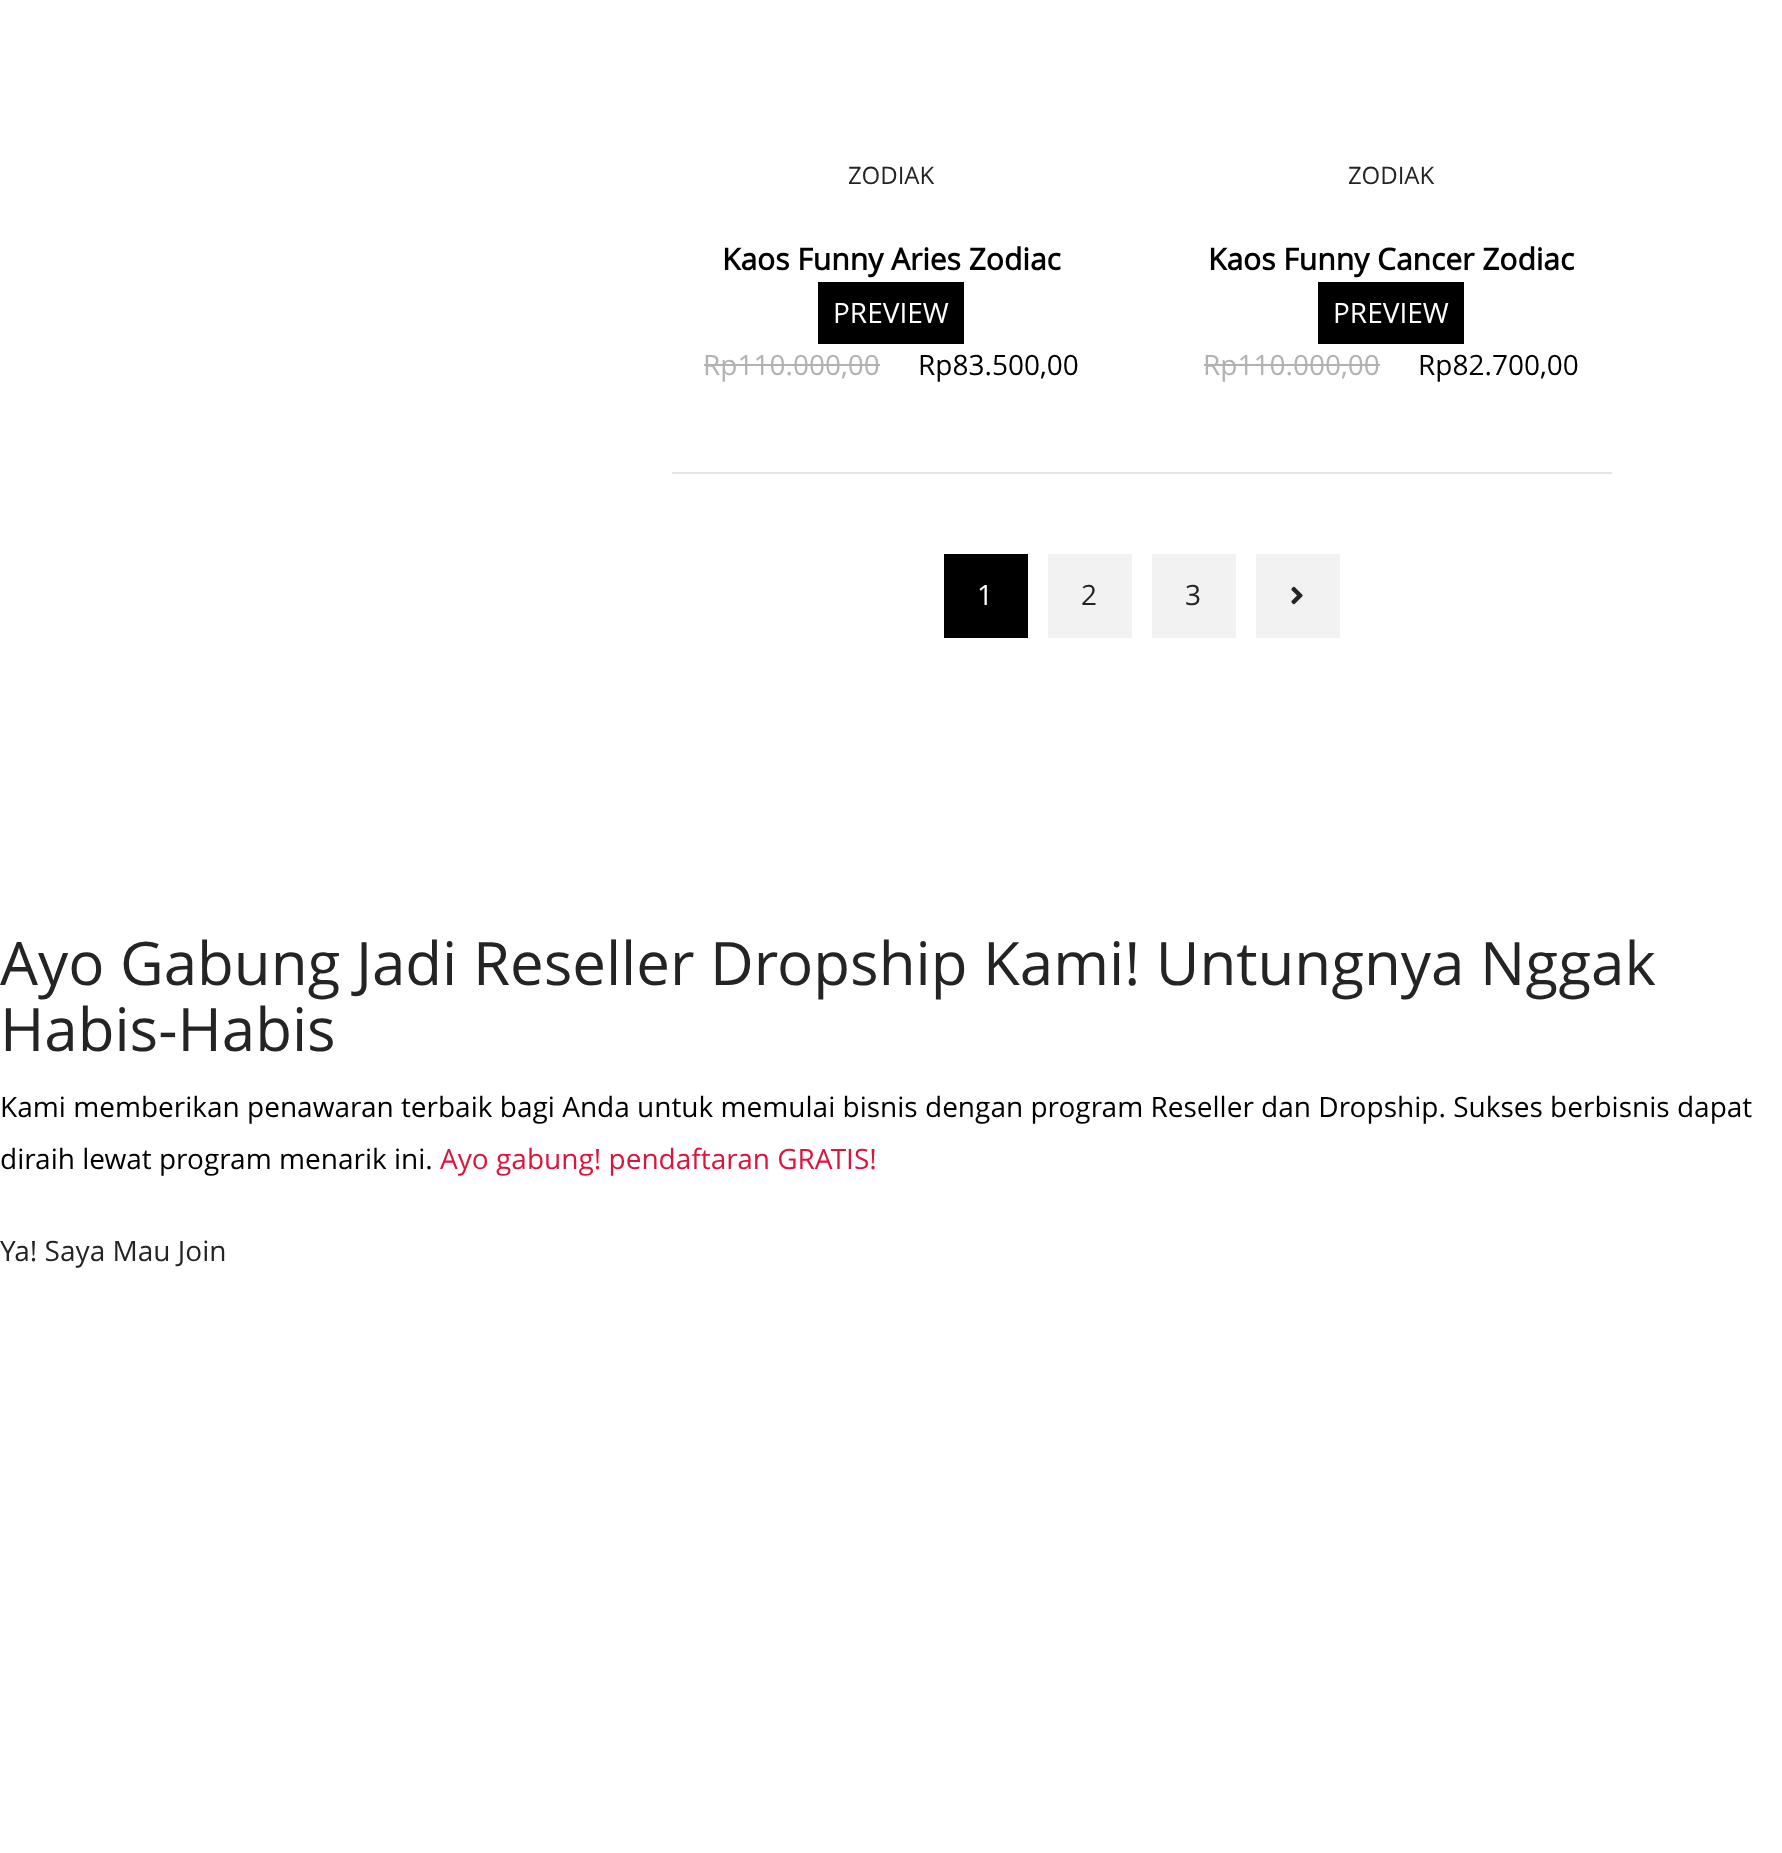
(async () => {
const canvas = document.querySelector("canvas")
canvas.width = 1782
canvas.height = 1853
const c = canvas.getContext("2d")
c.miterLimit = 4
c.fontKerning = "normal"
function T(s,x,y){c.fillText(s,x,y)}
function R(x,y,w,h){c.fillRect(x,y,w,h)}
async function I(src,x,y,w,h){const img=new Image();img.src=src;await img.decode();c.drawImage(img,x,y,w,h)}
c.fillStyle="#fff"
R(0,0,1782,1853)
c.font="24px Open Sans"
c.fillStyle="#242424"
T("ZODIAK",848,184)
c.font="bold 30px Open Sans"
c.fillStyle="#000"
T("Kaos Funny Aries Zodiac",722,270)
R(818,282,146,62)
c.font="28px Open Sans"
c.fillStyle="#fff"
T("PREVIEW",833,323)
c.fillStyle="#b2b2b2"
T("Rp110.000,00",703,375)
R(704,364,176,2)
c.fillStyle="#000"
T("Rp83.500,00",918,375)
c.font="24px Open Sans"
c.fillStyle="#242424"
T("ZODIAK",1348,184)
c.font="bold 30px Open Sans"
c.fillStyle="#000"
T("Kaos Funny Cancer Zodiac",1208,270)
R(1318,282,146,62)
c.font="28px Open Sans"
c.fillStyle="#fff"
T("PREVIEW",1333,323)
c.fillStyle="#b2b2b2"
T("Rp110.000,00",1203,375)
R(1204,364,176,2)
c.fillStyle="#000"
T("Rp82.700,00",1418,375)
c.fillStyle="#e5e5e5"
R(672,472,940,2)
c.fillStyle="#000"
R(944,554,84,84)
c.fillStyle="#fff"
T("1",977,605)
c.fillStyle="#f2f2f2"
R(1048,554,84,84)
c.fillStyle="#242424"
T("2",1081,605)
c.fillStyle="#f2f2f2"
R(1152,554,84,84)
c.fillStyle="#242424"
T("3",1185,605)
c.fillStyle="#f2f2f2"
R(1256,554,84,84)
await I("1.png",1291,586,12,19)
c.font="60px Open Sans"
c.fillStyle="#242424"
T("Ayo Gabung Jadi Reseller Dropship Kami! Untungnya Nggak",0,985)
T("Habis-Habis",0,1051)
c.font="28px Open Sans"
c.fillStyle="#000"
T("Kami memberikan penawaran terbaik bagi Anda untuk memulai bisnis dengan program Reseller dan Dropship. Sukses berbisnis dapat",0,1117)
T("diraih lewat program menarik ini.",0,1169)
c.fillStyle="#dc143c"
T("Ayo gabung! pendaftaran GRATIS!",440,1169)
c.fillStyle="#242424"
T("Ya! Saya Mau Join",0,1261)
})()
